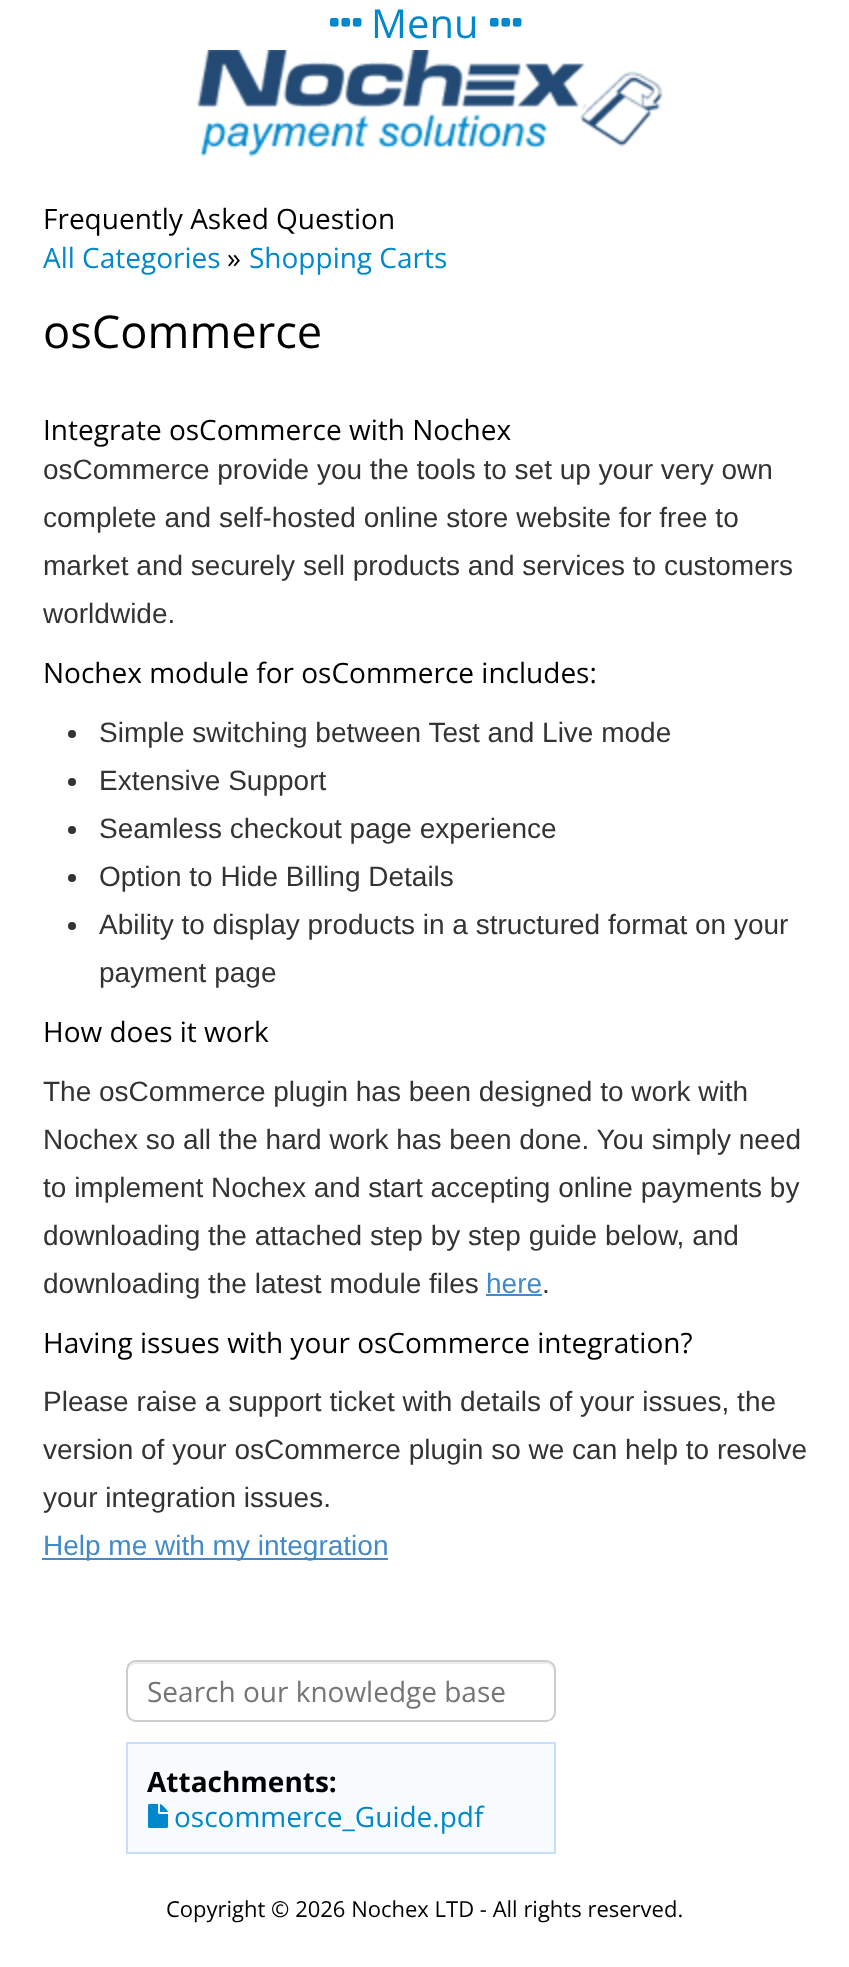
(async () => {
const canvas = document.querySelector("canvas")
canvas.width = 849
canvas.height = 1967
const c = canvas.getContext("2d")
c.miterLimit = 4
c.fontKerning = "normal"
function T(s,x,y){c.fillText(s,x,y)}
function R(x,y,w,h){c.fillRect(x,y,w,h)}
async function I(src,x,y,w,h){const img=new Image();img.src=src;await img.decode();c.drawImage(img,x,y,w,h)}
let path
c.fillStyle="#fff"
R(0,0,849,1967)
await I("1.png",330,18,32,9)
c.font="40px Open Sans"
c.fillStyle="#08c"
T("Menu",371,38)
await I("1.png",490,18,32,9)
await I("2.png",197,50,466,107)
c.font="28px Open Sans"
c.fillStyle="#000"
T("Frequently Asked Question",43,229)
c.fillStyle="#08c"
T("All Categories",43,268)
c.fillStyle="#000"
T("»",227,268)
c.fillStyle="#08c"
T("Shopping Carts",249,268)
c.font="45.25px Open Sans"
c.fillStyle="#000"
T("osCommerce",43,348)
c.font="28px Open Sans"
T("Integrate osCommerce with Nochex",43,440)
c.font="28px Liberation Sans"
c.fillStyle="#333"
T("osCommerce provide you the tools to set up your very own",43,479)
T("complete and self-hosted online store website for free to",43,527)
T("market and securely sell products and services to customers",43,575)
T("worldwide.",43,623)
c.font="28px Open Sans"
c.fillStyle="#000"
T("Nochex module for osCommerce includes:",43,683)
c.fillStyle="#333"
c.beginPath()
c.arc(72,734,4,0,7)
c.fill()
c.font="28px Liberation Sans"
T("Simple switching between Test and Live mode",99,742)
c.beginPath()
c.arc(72,782,4,0,7)
c.fill()
T("Extensive Support",99,790)
c.beginPath()
c.arc(72,830,4,0,7)
c.fill()
T("Seamless checkout page experience",99,838)
c.beginPath()
c.arc(72,878,4,0,7)
c.fill()
T("Option to Hide Billing Details",99,886)
c.beginPath()
c.arc(72,926,4,0,7)
c.fill()
T("Ability to display products in a structured format on your",99,934)
T("payment page",99,982)
c.font="28px Open Sans"
c.fillStyle="#000"
T("How does it work",43,1042)
c.font="28px Liberation Sans"
c.fillStyle="#333"
T("The osCommerce plugin has been designed to work with",43,1101)
T("Nochex so all the hard work has been done. You simply need",43,1149)
T("to implement Nochex and start accepting online payments by",43,1197)
T("downloading the attached step by step guide below, and",43,1245)
T("downloading the latest module files",43,1293)
c.fillStyle="#428bca"
T("here",486,1293)
R(486,1294,56,2)
c.fillStyle="#333"
T(".",542,1293)
c.font="28px Open Sans"
c.fillStyle="#000"
T("Having issues with your osCommerce integration?",43,1353)
c.font="28px Liberation Sans"
c.fillStyle="#333"
T("Please raise a support ticket with details of your issues, the",43,1411)
T("version of your osCommerce plugin so we can help to resolve",43,1459)
T("your integration issues.",43,1507)
c.fillStyle="#428bca"
R(42,1558,346,2)
T("Help me with my integration",43,1555)
c.fillStyle="#ececec"
path = new Path2D("M136 1664h410c4 0 8 4 8 8v-2c0-4-4-8-8-8h-410c-4 0-8 4-8 8v2c0-4 4-8 8-8z")
c.fill(path)
c.beginPath()
c.roundRect(127,1661,428,60,9)
c.strokeStyle="#ccc"
c.lineWidth=2
c.stroke()
c.font="28px Open Sans"
c.fillStyle="#757575"
T("Search our knowledge base",147,1702)
c.fillStyle="#f7fbfe"
c.beginPath()
c.rect(127,1743,428,110)
c.fill()
c.strokeStyle="#c8ddfa"
c.stroke()
c.font="bold 28px Open Sans"
c.fillStyle="#000"
T("Attachments:",147,1792)
await I("3.png",148,1804,20,24)
c.font="28px Open Sans"
c.fillStyle="#08c"
T("oscommerce_Guide.pdf",174,1827)
c.font="22px Open Sans"
c.fillStyle="#000"
T("Copyright © 2026 Nochex LTD - All rights reserved.",166,1917)
})()
